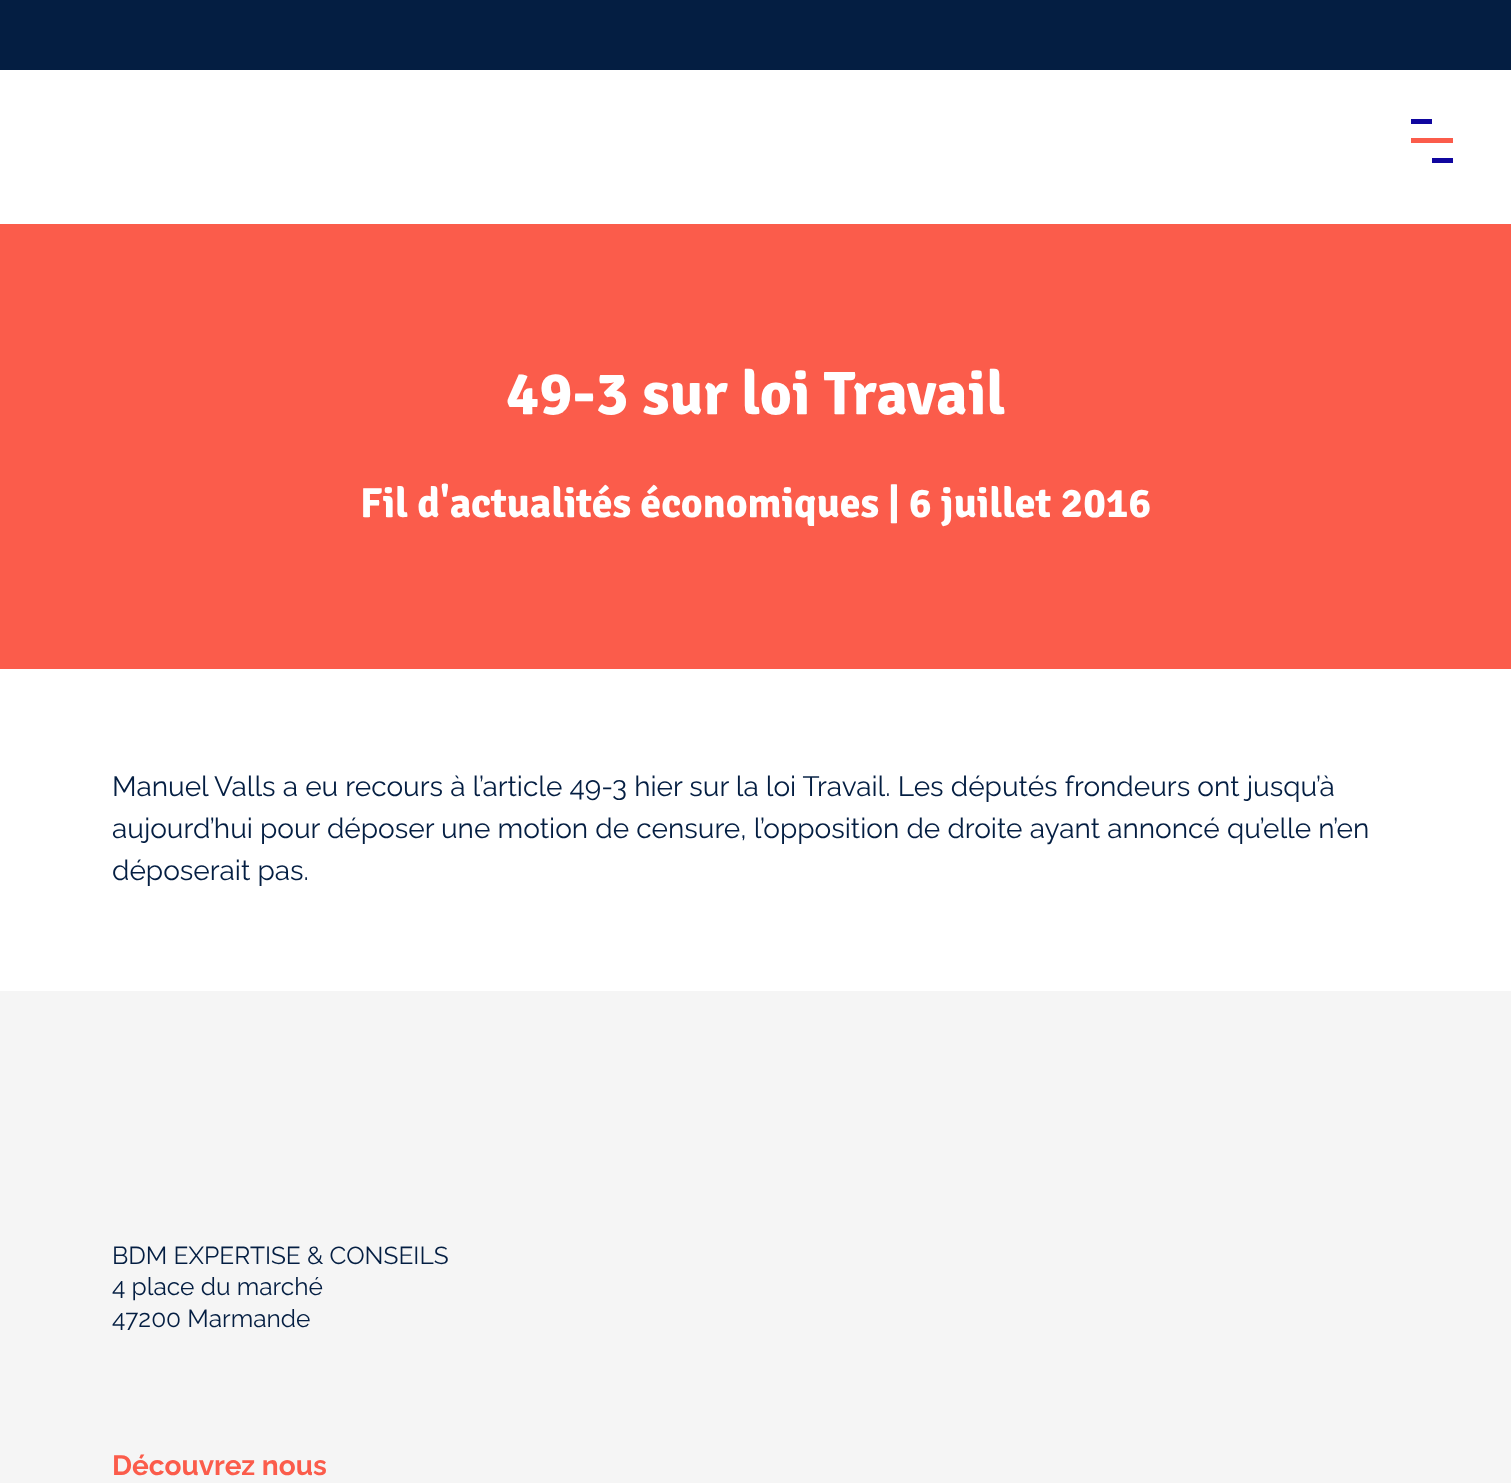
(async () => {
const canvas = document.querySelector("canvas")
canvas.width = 1511
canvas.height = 1483
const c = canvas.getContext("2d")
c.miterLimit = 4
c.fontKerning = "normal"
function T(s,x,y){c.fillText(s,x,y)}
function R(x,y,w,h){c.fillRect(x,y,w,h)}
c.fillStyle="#fff"
R(0,0,1511,1483)
c.fillStyle="#041e42"
R(0,0,1511,70)
c.fillStyle="#10069f"
R(1411,119,21,5)
c.fillStyle="#fb5c4b"
R(1411,138,42,5)
c.fillStyle="#10069f"
R(1432,158,21,5)
c.fillStyle="#fb5c4b"
R(0,224,1511,445)
c.font="bold 61.5px Signika"
c.fillStyle="#fff"
T("49-3 sur loi Travail",506,414)
c.font="bold 42px Signika"
T("Fil d'actualités économiques | 6 juillet 2016",360,517)
c.font="28px Raleway"
c.fillStyle="#041e42"
T("Manuel Valls a eu recours à l’article 49-3 hier sur la loi Travail. Les députés frondeurs ont jusqu’à",112,796)
T("aujourd’hui pour déposer une motion de censure, l’opposition de droite ayant annoncé qu’elle n’en",112,838)
T("déposerait pas.",112,880)
c.fillStyle="#f5f5f5"
R(0,991,1511,492)
c.font="24.5px Raleway"
c.fillStyle="#041e42"
T("BDM EXPERTISE & CONSEILS",112,1264)
T("4 place du marché",112,1295)
T("47200 Marmande",112,1327)
c.font="bold 28px Raleway"
c.fillStyle="#fb5c4b"
T("Découvrez nous",112,1475)
})()
